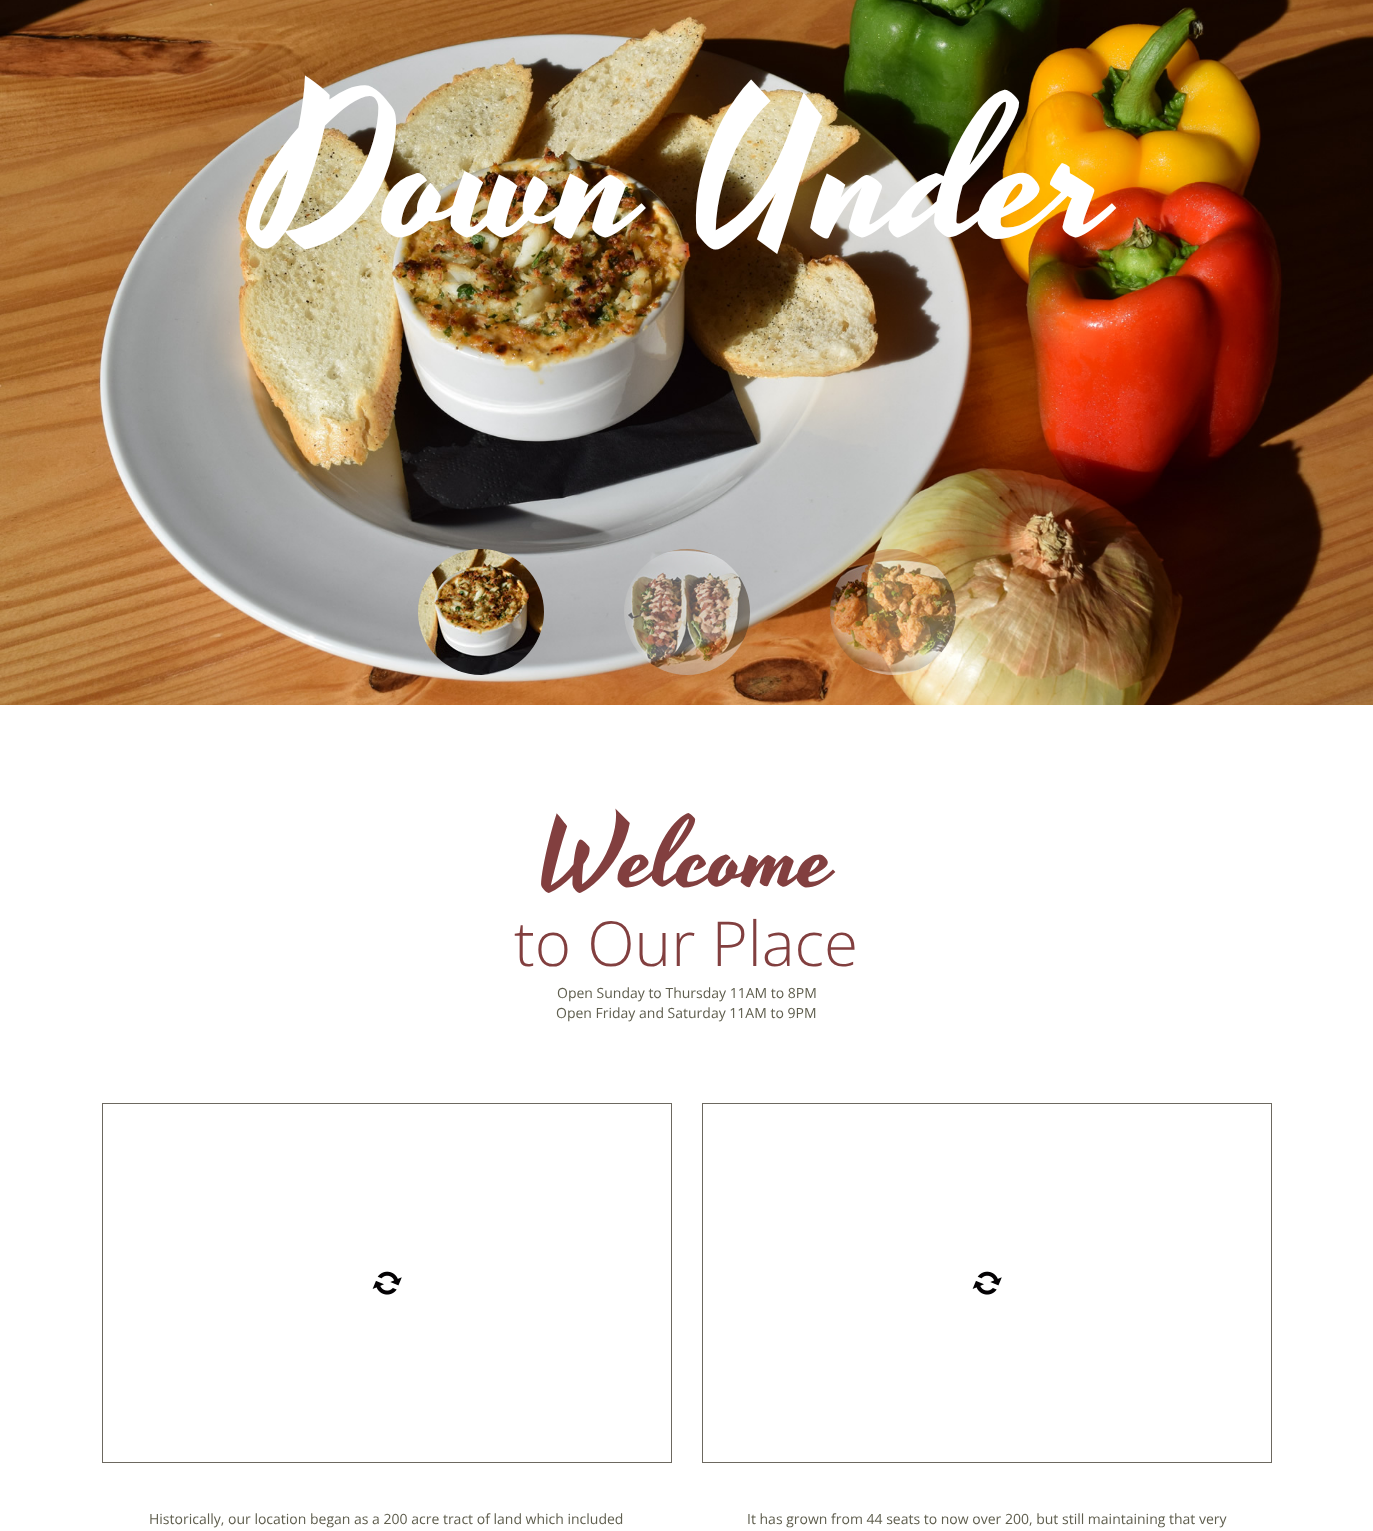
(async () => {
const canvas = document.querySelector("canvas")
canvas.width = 1373
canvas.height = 1531
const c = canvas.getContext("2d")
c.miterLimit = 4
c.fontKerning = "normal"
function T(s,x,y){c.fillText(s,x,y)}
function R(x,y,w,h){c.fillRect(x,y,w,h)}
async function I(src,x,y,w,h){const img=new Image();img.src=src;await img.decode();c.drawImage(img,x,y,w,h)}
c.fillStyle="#fff"
R(0,0,1373,1531)
await I("1.png",0,0,1373,705)
await I("2.png",418,549,126,126)
await I("3.png",624,549,126,126)
await I("4.png",830,549,126,126)
c.font="200px Yesteryear"
T("Down Under",256,232)
c.font="100px Yesteryear"
c.fillStyle="#823f3f"
T("Welcome",538,884)
c.font="300 62px Open Sans"
T("to Our Place",514,966)
c.font="14px Open Sans"
c.fillStyle="#5f5e4e"
T("Open Sunday to Thursday 11AM to 8PM",557,998)
T("Open Friday and Saturday 11AM to 9PM",556,1018)
c.strokeStyle="#6c6860"
c.strokeRect(102.5,1103.5,569,359)
await I("5.png",372,1271,30,24)
T("Historically, our location began as a 200 acre tract of land which included",149,1524)
c.strokeRect(702.5,1103.5,569,359)
await I("5.png",972,1271,30,24)
T("It has grown from 44 seats to now over 200, but still maintaining that very",747,1524)
})()
